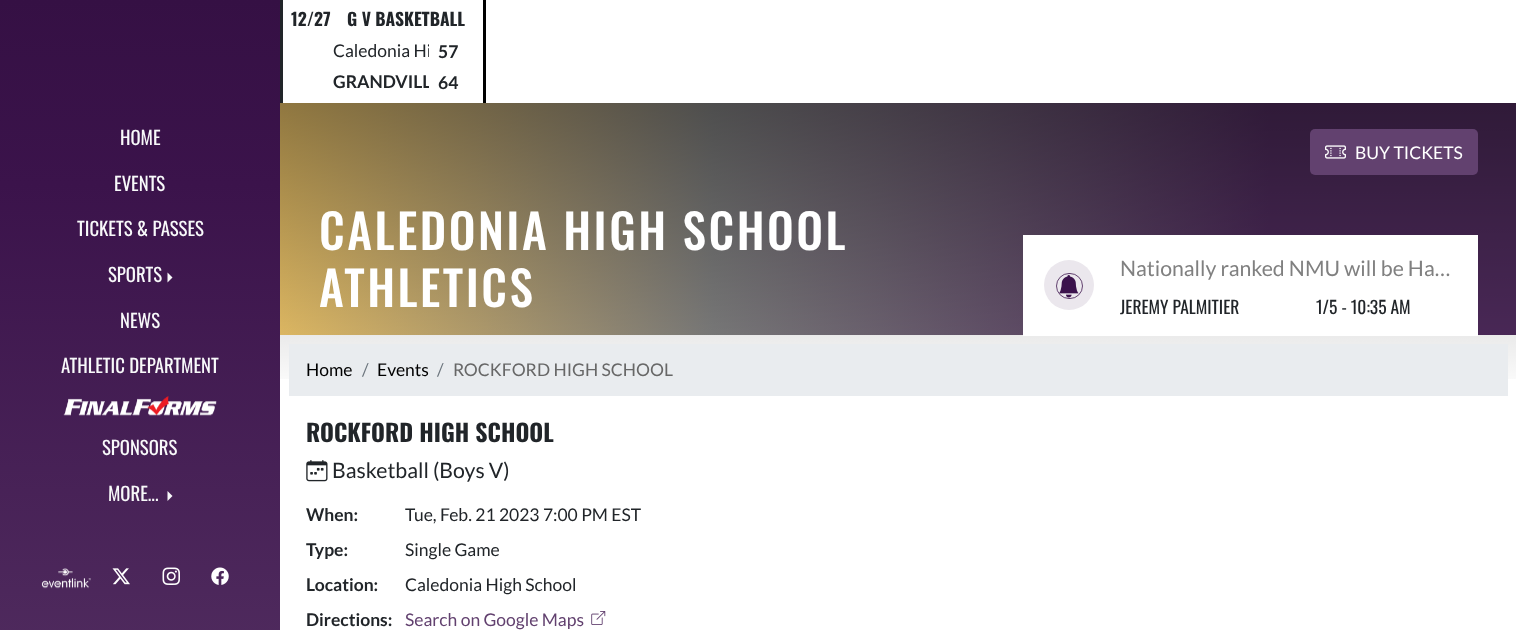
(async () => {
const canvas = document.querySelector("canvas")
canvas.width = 1516
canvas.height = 630
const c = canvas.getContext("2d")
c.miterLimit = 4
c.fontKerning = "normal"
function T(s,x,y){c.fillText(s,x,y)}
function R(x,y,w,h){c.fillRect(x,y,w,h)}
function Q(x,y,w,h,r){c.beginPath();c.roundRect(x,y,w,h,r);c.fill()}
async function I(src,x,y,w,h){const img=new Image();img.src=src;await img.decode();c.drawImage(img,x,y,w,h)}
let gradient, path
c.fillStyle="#fff"
R(0,0,1516,630)
gradient = c.createLinearGradient(140,0,140,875)
gradient.addColorStop(0,"#351044")
gradient.addColorStop(.21,"#3b134b")
gradient.addColorStop(1,"#583566")
gradient.addColorStop(1,"#3b134b")
c.fillStyle = gradient
R(0,0,280,630)
c.font="18.75px Oswald"
c.fillStyle="#f8f9fa"
T("HOME",120,145)
T("EVENTS",114,191)
T("TICKETS & PASSES",77,236)
T("SPORTS",108,282)
path = new Path2D("M167.5 282.5v-10l5 5z")
c.fill(path)
T("NEWS",120,328)
T("ATHLETIC DEPARTMENT",61,373)
await I("1.png",63,396,154,20)
T("SPONSORS",102,455)
T("MORE...",108,501)
path = new Path2D("M167.5 501v-10l5 5z")
c.fill(path)
await I("2.png",41,568,50,21)
await I("3.png",112,568,18,17)
await I("4.png",162,567,18,18)
await I("5.png",211,567,18,18)
c.fillStyle="#000"
R(483,0,3,103)
c.fillStyle="#212529"
R(280,0,3,103)
c.font="bold 17.5px Oswald"
T("12/27",291,26)
T("G V BASKETBALL",347,26)
c.save()
c.beginPath()
c.rect(333,35,96,26)
c.clip()
c.font="17.5px Lato"
T("Caledonia Hi",333,57)
c.restore()
c.font="bold 17.5px Lato"
T("57",438,58)
c.save()
c.beginPath()
c.rect(333,66,96,27)
c.clip()
T("GRANDVILL",333,88)
c.restore()
T("64",438,89)
gradient = c.createLinearGradient(280,219,1516,219)
gradient.addColorStop(0,"#efc66a")
gradient.addColorStop(.35,"#818181")
gradient.addColorStop(.8,"#4f2b5d")
c.fillStyle = gradient
R(280,103,1236,232)
gradient = c.createLinearGradient(898,102,898,395)
gradient.addColorStop(0,"#00000066")
gradient.addColorStop(1,"#00000000")
c.fillStyle = gradient
R(280,103,1236,276)
c.fillStyle="#62416f"
Q(1310,129,168,46,5)
await I("6.png",1325,145,21,14)
c.font="17.5px Lato"
c.fillStyle="#fff"
T("BUY TICKETS",1355,159)
c.letterSpacing="2.5px"
c.font="500 47.5px Oswald"
T("CALEDONIA HIGH SCHOOL",319,250)
T("ATHLETICS",319,307)
R(1023,235,455,101)
c.fillStyle="#ebe7ed"
c.beginPath()
c.arc(1069,285,25,0,7)
c.fill()
await I("7.png",1059,275,20,23)
c.beginPath()
c.roundRect(1056.5,273.5,26,25,12.5)
c.strokeStyle="#62416f"
c.stroke()
c.letterSpacing="0px"
c.font="21.25px Lato"
c.fillStyle="#808080"
T("Nationally ranked NMU will be Ha…",1120,276)
c.font="17.5px Oswald"
c.fillStyle="#212529"
T("JEREMY PALMITIER",1120,314)
T("1/5 - 10:35 AM",1316,314)
c.fillStyle="#e9ecef"
R(289,344,1219,52)
c.font="17.5px Lato"
c.fillStyle="#000"
T("Home",306,376)
c.fillStyle="#6c757d"
T("/",362,376)
c.fillStyle="#000"
T("Events",377,376)
c.fillStyle="#6c757d"
T("/",437,376)
c.fillStyle="#676767"
T("ROCKFORD HIGH SCHOOL",453,376)
c.font="bold 23.75px Oswald"
c.fillStyle="#212529"
T("ROCKFORD HIGH SCHOOL",306,442)
await I("8.png",306,460,22,22)
c.font="21.25px Lato"
T("Basketball (Boys V)",332,478)
c.font="bold 17.5px Lato"
T("When:",306,521)
c.font="17.5px Lato"
T("Tue, Feb. 21 2023 7:00 PM EST",405,521)
c.font="bold 17.5px Lato"
T("Type:",306,556)
c.font="17.5px Lato"
T("Single Game",405,556)
c.font="bold 17.5px Lato"
T("Location:",306,591)
c.font="17.5px Lato"
T("Caledonia High School",405,591)
c.font="bold 17.5px Lato"
T("Directions:",306,626)
c.font="17.5px Lato"
c.fillStyle="#62416f"
T("Search on Google Maps",405,626)
await I("9.png",591,611,15,14)
})()
